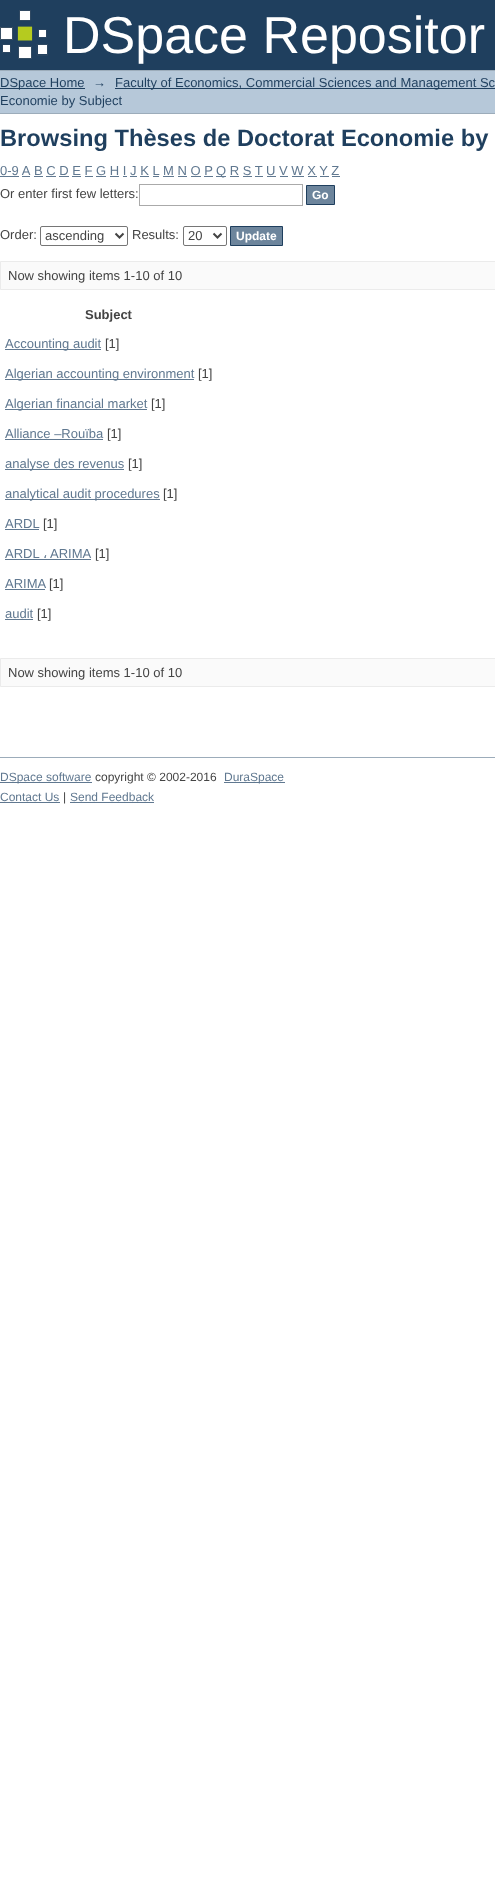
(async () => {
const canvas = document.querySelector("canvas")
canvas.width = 495
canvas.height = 1897
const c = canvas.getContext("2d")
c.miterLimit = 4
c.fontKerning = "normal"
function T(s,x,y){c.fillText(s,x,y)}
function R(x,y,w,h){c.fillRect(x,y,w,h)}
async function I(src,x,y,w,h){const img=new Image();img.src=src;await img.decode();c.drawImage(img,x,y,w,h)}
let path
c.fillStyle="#fff"
R(0,0,495,1897)
c.fillStyle="#1f3f5e"
R(0,0,495,70)
await I("1.png",0,10,48,49)
c.font="52px Liberation Sans"
c.fillStyle="#fff"
T("DSpace Repositor",63,53)
c.fillStyle="#b6c8d9"
R(0,71,495,42)
c.fillStyle="#9cacba"
R(0,70,495,1)
R(0,113,495,1)
c.fillStyle="#1f3f5e"
R(0,88,85,1)
c.font="13px Liberation Sans"
T("DSpace Home",0,87)
T("→",93,87)
R(115,88,380,1)
T("Faculty of Economics, Commercial Sciences and Management Sc",115,87)
T("Economie by Subject",0,105)
c.font="bold 23.7px Liberation Sans"
T("Browsing Thèses de Doctorat Economie by",0,146)
c.font="13px Liberation Sans"
c.fillStyle="#607890"
T("0-9 A",0,175)
R(0,176,19,1)
T("B C D E F G H I J K L",34,175)
R(34,176,9,1)
T("M N O P",163,175)
R(163,176,11,1)
R(216,176,10,1)
T("Q R S T U V W X Y Z",216,175)
R(22,176,8,1)
R(46,176,10,1)
R(59,176,10,1)
R(72,176,9,1)
R(85,176,8,1)
R(96,176,10,1)
R(110,176,9,1)
R(123,176,4,1)
R(130,176,7,1)
R(140,176,9,1)
R(153,176,6,1)
R(178,176,9,1)
R(191,176,10,1)
R(204,176,9,1)
R(230,176,9,1)
R(243,176,9,1)
R(255,176,8,1)
R(267,176,9,1)
R(280,176,8,1)
R(292,176,12,1)
R(308,176,9,1)
R(320,176,9,1)
R(332,176,8,1)
c.fillStyle="#444"
T("Or enter first few letters:",0,198)
c.strokeStyle="#aaa"
c.strokeRect(139.5,184.5,163,21)
c.fillStyle="#6d859c"
c.beginPath()
c.rect(306.5,185.5,28,19)
c.fill()
c.strokeStyle="#1f3f5e"
c.stroke()
c.font="bold 12px Liberation Sans"
c.fillStyle="#fff"
T("Go",312,199)
c.font="13px Liberation Sans"
c.fillStyle="#444"
T("Order:",0,239)
c.beginPath()
c.roundRect(40.5,226.5,87,19,1.5)
c.strokeStyle="#767676"
c.stroke()
path = new Path2D("M115.5 233.5l4 4l4-4")
c.strokeStyle="#444"
c.lineWidth=2
c.stroke(path)
T("ascending",45,240)
T("Results:",132,239)
c.beginPath()
c.roundRect(183.5,226.5,43,19,1.5)
c.strokeStyle="#767676"
c.lineWidth=1
c.stroke()
path = new Path2D("M213.5 233.5l4 4l4-4")
c.strokeStyle="#444"
c.lineWidth=2
c.stroke(path)
T("20",188,240)
c.fillStyle="#6d859c"
c.beginPath()
c.rect(230.5,226.5,52,19)
c.fill()
c.strokeStyle="#1f3f5e"
c.lineWidth=1
c.stroke()
c.font="bold 12px Liberation Sans"
c.fillStyle="#fff"
T("Update",236,240)
c.fillStyle="#fafafa"
c.beginPath()
c.rect(.5,261.5,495,28)
c.fill()
c.strokeStyle="#ebebeb"
c.stroke()
c.font="13px Liberation Sans"
c.fillStyle="#444"
T("Now showing items 1-10 of 10",8,280)
c.font="bold 13px Liberation Sans"
T("Subject",85,319)
c.fillStyle="#607890"
R(5,349,96,1)
c.font="13px Liberation Sans"
T("Accounting audit",5,348)
c.fillStyle="#444"
T("[1]",105,348)
c.fillStyle="#607890"
R(5,379,189,1)
T("Algerian accounting environment",5,378)
c.fillStyle="#444"
T("[1]",198,378)
c.fillStyle="#607890"
R(5,409,142,1)
T("Algerian financial market",5,408)
c.fillStyle="#444"
T("[1]",151,408)
c.fillStyle="#607890"
T("Alliance –Rouïba",5,438)
R(5,439,98,1)
c.fillStyle="#444"
T("[1]",107,438)
c.fillStyle="#607890"
R(5,469,119,1)
T("analyse des revenus",5,468)
c.fillStyle="#444"
T("[1]",128,468)
c.fillStyle="#607890"
R(5,499,155,1)
T("analytical audit procedures",5,498)
c.fillStyle="#444"
T("[1]",163,498)
c.fillStyle="#607890"
T("ARDL",5,528)
R(5,529,34,1)
c.fillStyle="#444"
T("[1]",43,528)
c.fillStyle="#607890"
T("ARDL",5,558)
c.font="13px DejaVu Sans"
T("،",43,558)
R(5,559,86,1)
c.font="13px Liberation Sans"
T("ARIMA",50,558)
c.fillStyle="#444"
T("[1]",95,558)
c.fillStyle="#607890"
T("ARIMA",5,588)
R(5,589,40,1)
c.fillStyle="#444"
T("[1]",49,588)
c.fillStyle="#607890"
T("audit",5,618)
R(5,619,28,1)
c.fillStyle="#444"
T("[1]",37,618)
c.fillStyle="#fafafa"
c.beginPath()
c.rect(.5,658.5,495,28)
c.fill()
c.stroke()
c.fillStyle="#444"
T("Now showing items 1-10 of 10",8,677)
c.fillStyle="#9cacba"
R(0,757,495,1)
c.fillStyle="#607890"
R(0,782,92,1)
c.font="12px Liberation Sans"
T("DSpace software",0,781)
c.fillStyle="#444"
T("copyright © 2002-2016",95,781)
c.fillStyle="#607890"
R(224,782,61,1)
T("DuraSpace",224,781)
T("Contact Us",0,801)
R(0,802,60,1)
c.fillStyle="#444"
T("|",63,801)
c.fillStyle="#607890"
T("Send Feedback",70,801)
R(70,802,84,1)
})()
